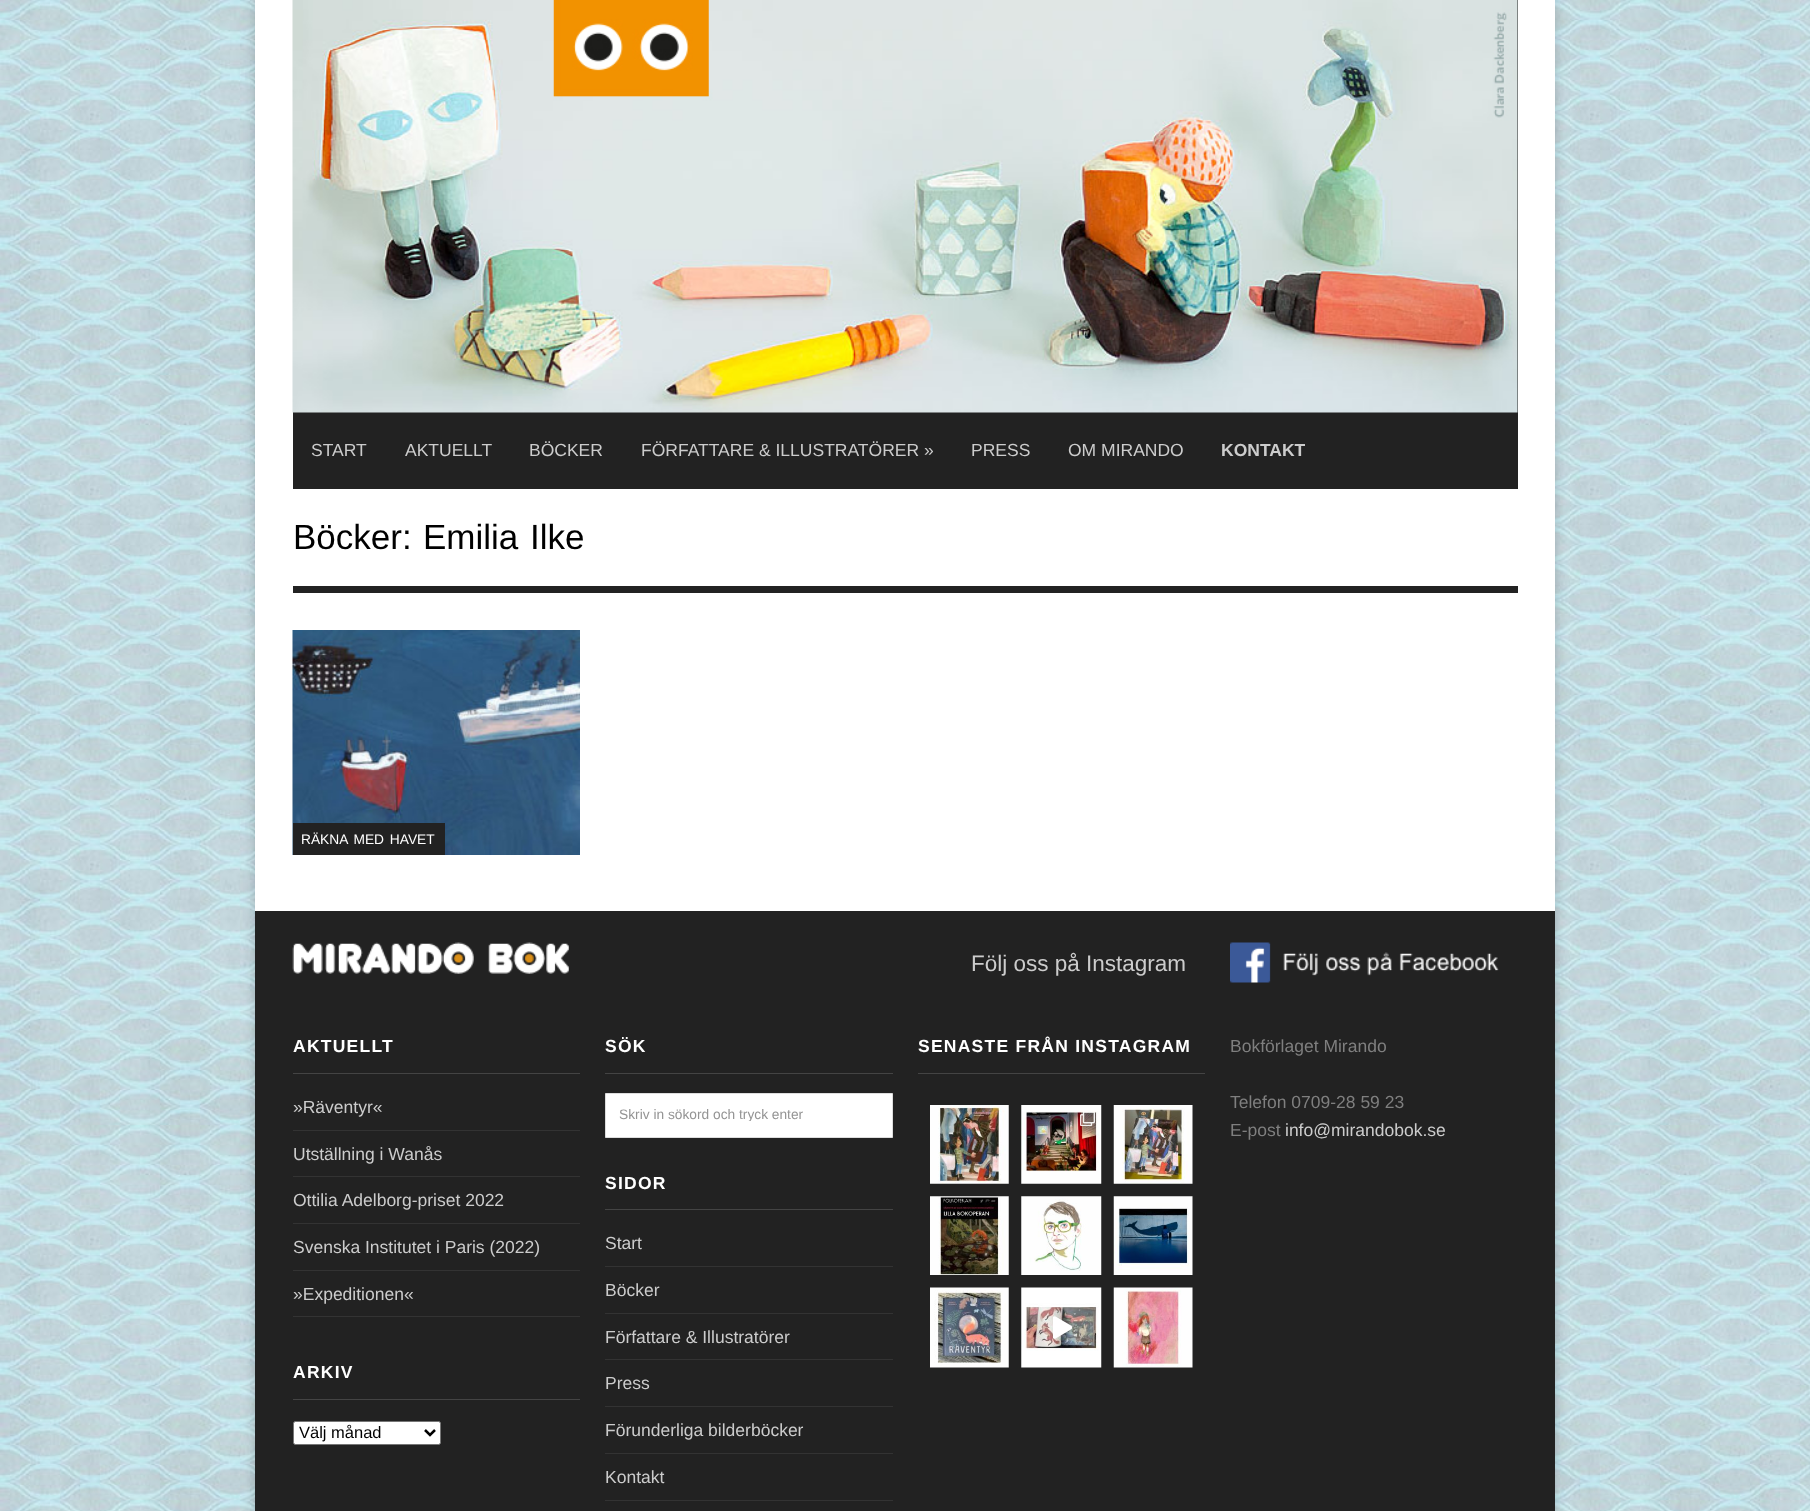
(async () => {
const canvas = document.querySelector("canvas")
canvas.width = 1810
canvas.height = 1511
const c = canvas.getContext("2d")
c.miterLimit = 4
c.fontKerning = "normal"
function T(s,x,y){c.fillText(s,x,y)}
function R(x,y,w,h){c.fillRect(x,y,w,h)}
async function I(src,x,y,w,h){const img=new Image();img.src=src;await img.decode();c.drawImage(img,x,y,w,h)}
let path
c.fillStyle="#fff"
R(0,0,1810,1511)
await I("1.png",0,0,1810,1511)
c.fillStyle="#00000033"
c.filter="blur(6px)"
c.beginPath()
c.rect(255,0,1300,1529)
c.fill()
c.filter="none"
c.fillStyle="#fff"
R(255,0,1300,911)
c.fillStyle="#222"
R(293,0,1225,489)
await I("2.png",292,0,1226,413)
c.font="17.5px Liberation Sans"
c.fillStyle="#ccc"
T("START",311,456)
T("AKTUELLT",405,456)
T("BÖCKER",529,456)
T("FÖRFATTARE & ILLUSTRATÖRER »",641,456)
T("PRESS",971,456)
T("OM MIRANDO",1068,456)
c.font="bold 17.5px Liberation Sans"
T("KONTAKT",1221,456)
c.fillStyle="#222"
R(293,586,1225,7)
c.font="35px Liberation Sans"
c.fillStyle="#000"
T("Böcker:",293,549)
c.wordSpacing="2px"
T("Emilia Ilke",423,549)
await I("3.png",292,630,288,225)
c.fillStyle="#222"
R(293,823,152,32)
c.font="13.75px Liberation Sans"
c.fillStyle="#fff"
T("RÄKNA MED HAVET",301,844)
c.fillStyle="#222"
R(255,911,1300,600)
c.wordSpacing="0px"
c.font="22.5px Liberation Sans"
c.fillStyle="#ccc"
T("Följ oss på Instagram",971,971)
c.fillStyle="#444"
R(918,1073,287,1)
c.letterSpacing="1.25px"
c.font="bold 17.5px Liberation Sans"
c.fillStyle="#fff"
T("SENASTE FRÅN INSTAGRAM",918,1052)
await I("4.png",930,1105,79,79)
await I("5.png",1021,1105,81,79)
await I("6.png",1080,1112,15,14)
await I("7.png",1113,1105,80,79)
await I("8.png",930,1196,79,79)
await I("9.png",1021,1196,81,79)
await I("10.png",1113,1196,80,79)
await I("11.png",930,1287,79,81)
await I("12.png",1021,1287,81,81)
await I("13.png",1053,1316,20,23)
await I("14.png",1113,1287,80,81)
await I("15.png",292,942,277,32)
c.fillStyle="#444"
R(293,1073,287,1)
c.fillStyle="#fff"
T("AKTUELLT",293,1052)
c.fillStyle="#333"
R(293,1130,287,1)
c.letterSpacing="0px"
c.font="17.5px Liberation Sans"
c.fillStyle="#ccc"
T("»Räventyr«",293,1113)
c.fillStyle="#333"
R(293,1176,287,1)
c.fillStyle="#ccc"
T("Utställning i Wanås",293,1160)
c.fillStyle="#333"
R(293,1223,287,1)
c.fillStyle="#ccc"
T("Ottilia Adelborg-priset 2022",293,1206)
c.fillStyle="#333"
R(293,1270,287,1)
c.fillStyle="#ccc"
T("Svenska Institutet i Paris (2022)",293,1253)
c.fillStyle="#333"
R(293,1316,287,1)
c.fillStyle="#ccc"
T("»Expeditionen«",293,1300)
c.fillStyle="#444"
R(293,1399,287,1)
c.letterSpacing="1.25px"
c.font="bold 17.5px Liberation Sans"
c.fillStyle="#fff"
T("ARKIV",293,1378)
c.beginPath()
c.roundRect(293.5,1421.5,147,23,2)
c.fill()
c.strokeStyle="#767676"
c.stroke()
path = new Path2D("M425 1430l5 5l5-5")
c.strokeStyle="#000"
c.lineWidth=2.5
c.stroke(path)
c.letterSpacing="0px"
c.font="16.5px Liberation Sans"
c.fillStyle="#000"
T("Välj månad",299,1438)
c.fillStyle="#444"
R(605,1073,288,1)
c.letterSpacing="1.25px"
c.font="bold 17.5px Liberation Sans"
c.fillStyle="#fff"
T("SÖK",605,1052)
c.beginPath()
c.rect(605.5,1093.5,287,44)
c.fill()
c.strokeStyle="#ddd"
c.lineWidth=1
c.stroke()
c.save()
c.beginPath()
c.rect(619,1106,245,15)
c.clip()
c.letterSpacing="0px"
c.font="13.75px Liberation Sans"
c.fillStyle="#949494"
T("Skriv in sökord och tryck enter",619,1119)
c.restore()
c.fillStyle="#444"
R(605,1209,288,1)
c.fillStyle="#fff"
T("SIDOR",605,1189)
c.fillStyle="#333"
R(605,1266,288,1)
c.letterSpacing="0px"
c.font="17.5px Liberation Sans"
c.fillStyle="#ccc"
T("Start",605,1249)
c.fillStyle="#333"
R(605,1313,288,1)
c.fillStyle="#ccc"
T("Böcker",605,1296)
c.fillStyle="#333"
R(605,1359,288,1)
c.fillStyle="#ccc"
T("Författare & Illustratörer",605,1343)
c.fillStyle="#333"
R(605,1406,288,1)
c.fillStyle="#ccc"
T("Press",605,1389)
c.fillStyle="#333"
R(605,1453,288,1)
c.fillStyle="#ccc"
T("Förunderliga bilderböcker",605,1436)
c.fillStyle="#333"
R(605,1500,288,1)
c.fillStyle="#ccc"
T("Kontakt",605,1483)
await I("16.png",1230,942,269,41)
c.fillStyle="#7f7f7f"
T("Bokförlaget Mirando",1230,1052)
T("Telefon 0709-28 59 23",1230,1108)
T("E-post",1230,1136)
c.fillStyle="#ccc"
T("info@mirandobok.se",1285,1136)
})()
